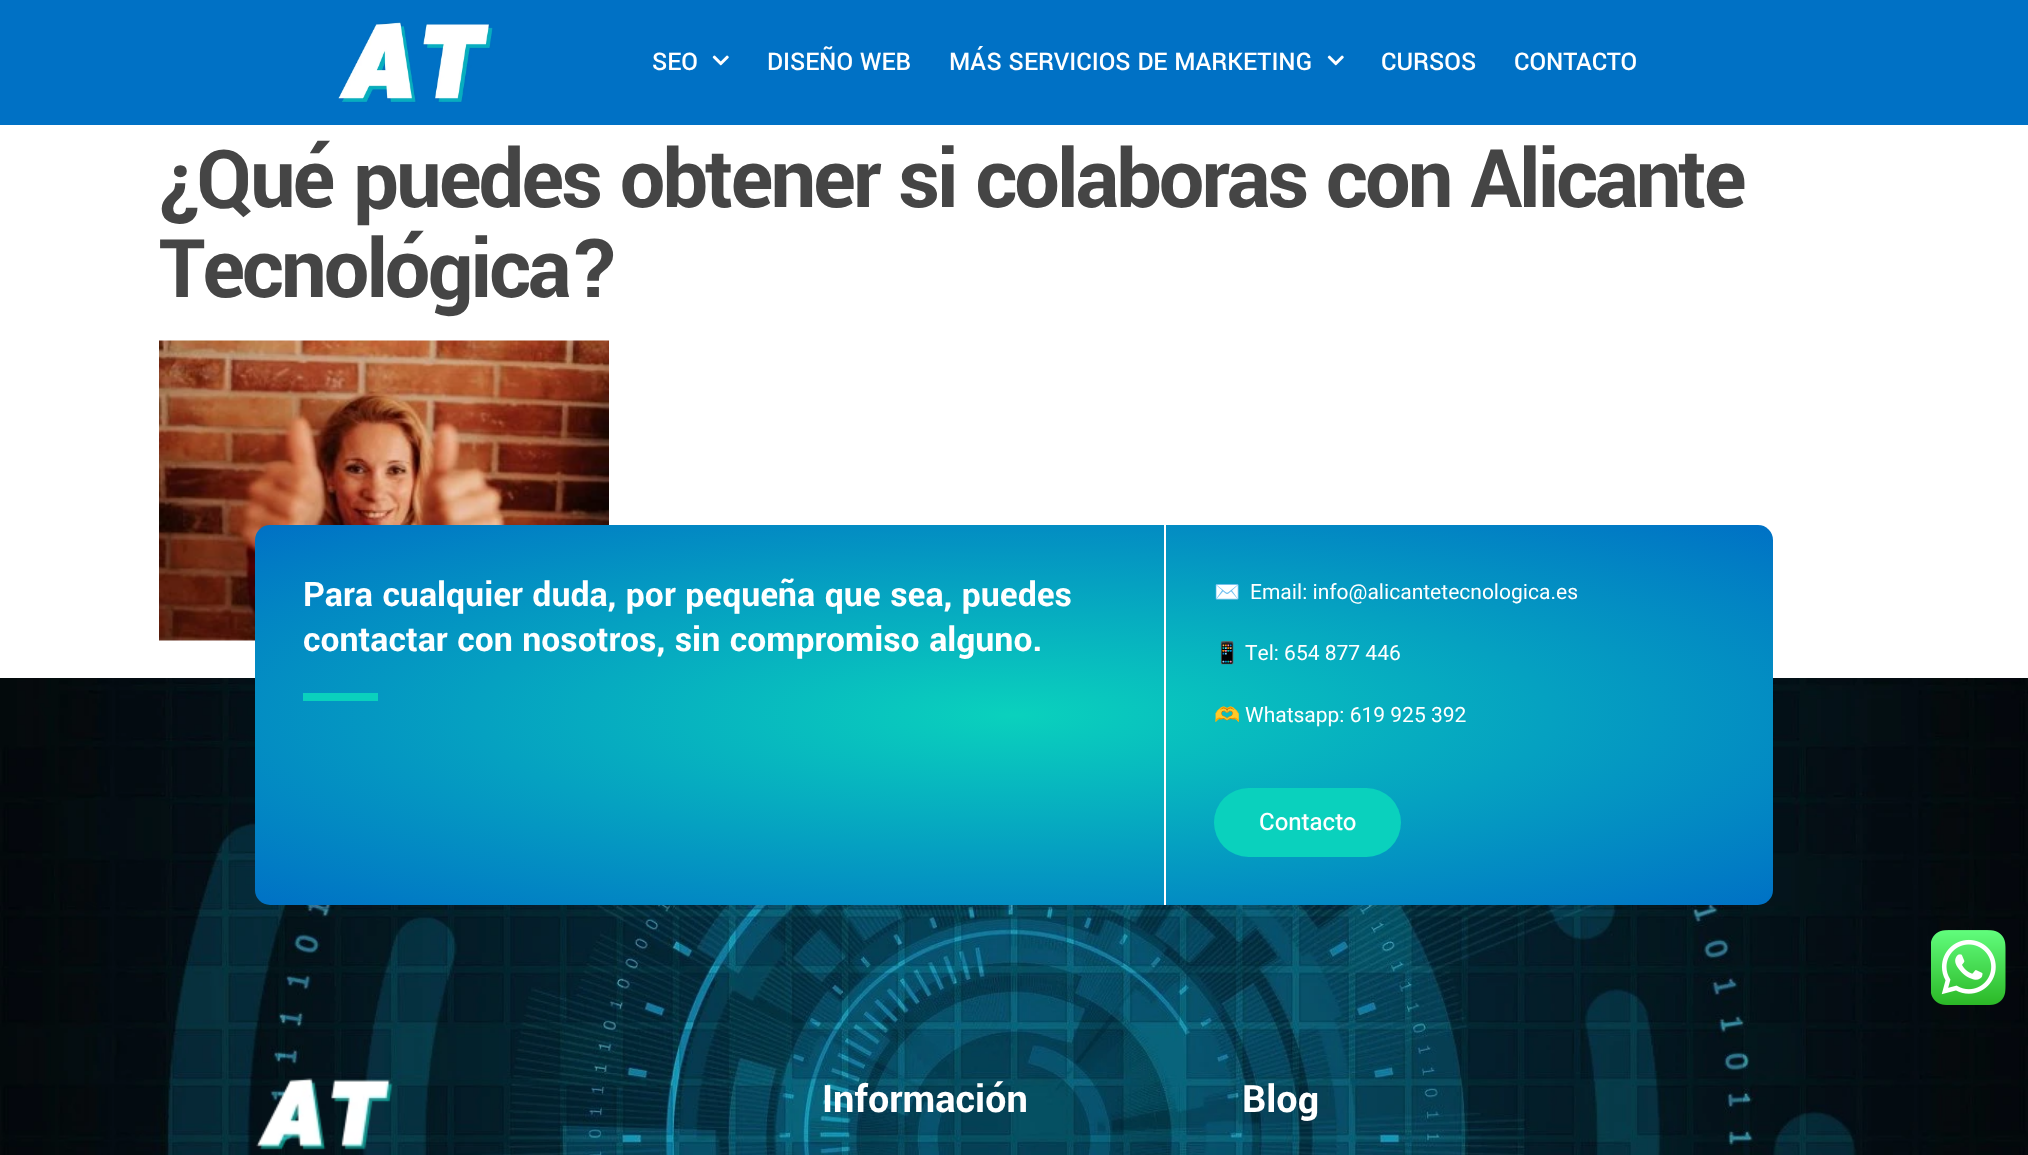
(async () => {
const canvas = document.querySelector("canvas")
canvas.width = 2028
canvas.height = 1155
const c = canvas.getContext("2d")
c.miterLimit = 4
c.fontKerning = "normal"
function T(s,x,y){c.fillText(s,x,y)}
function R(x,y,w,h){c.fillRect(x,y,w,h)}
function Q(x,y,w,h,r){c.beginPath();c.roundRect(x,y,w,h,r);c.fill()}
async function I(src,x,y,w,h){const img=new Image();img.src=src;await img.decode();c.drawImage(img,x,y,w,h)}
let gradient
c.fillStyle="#fff"
R(0,0,2028,1155)
c.fillStyle="#0071c5"
R(0,0,2028,125)
await I("1.png",338,22,155,81)
c.font="500 27px Yantramanav"
c.fillStyle="#fff"
T("SEO",652,70)
await I("2.png",712,55,17,11)
T("DISEÑO WEB",767,70)
T("MÁS SERVICIOS DE MARKETING",949,70)
await I("2.png",1327,55,17,11)
T("CURSOS",1381,70)
T("CONTACTO",1514,70)
c.letterSpacing="-3px"
c.font="bold 90px Yantramanav"
c.fillStyle="#454545"
T("¿Qué puedes obtener si colaboras con Alicante",159,207)
T("Tecnológica?",159,297)
await I("3.png",159,340,450,301)
await I("4.png",0,678,2028,477)
gradient = c.createRadialGradient(1014,2862.67,0,1014,2862.67,1073)
gradient.addColorStop(0,"#0ad1bd")
gradient.addColorStop(1,"#0071c5")
c.fillStyle = gradient
c.beginPath()
c.roundRect(255,525,1518,380,15)
c.save()
c.clip()
c.scale(1,268 / 1073)
c.fillRect(0,0,2028,4625)
c.restore()
c.fillStyle="#fff"
R(1164,525,2,380)
c.letterSpacing="0px"
c.font="bold 37.5px Yantramanav"
T("Para cualquier duda, por pequeña que sea, puedes",303,606)
T("contactar con nosotros, sin compromiso alguno.",303,651)
c.fillStyle="#0ad1bd"
R(303,693,75,8)
c.font="21px Noto Color Emoji"
c.fillStyle="#fff"
T("✉️",1214,599)
c.font="21px Heebo"
T("Email: info@alicantetecnologica.es",1250,599)
c.font="21px Noto Color Emoji"
T("📱",1214,660)
c.font="21px Heebo"
T("Tel: 654 877 446",1245,660)
c.font="21px Noto Color Emoji"
T("🫶",1214,722)
c.font="21px Heebo"
T("Whatsapp: 619 925 392",1245,722)
c.fillStyle="#0ad1bd"
Q(1214,788,187,69,34.5)
c.font="500 24px Heebo"
c.fillStyle="#fff"
T("Contacto",1259,830)
await I("5.png",256,1078,137,72)
c.font="bold 42px Yantramanav"
T("Información",822,1112)
T("Blog",1242,1112)
await I("6.png",1931,930,75,75)
})()
